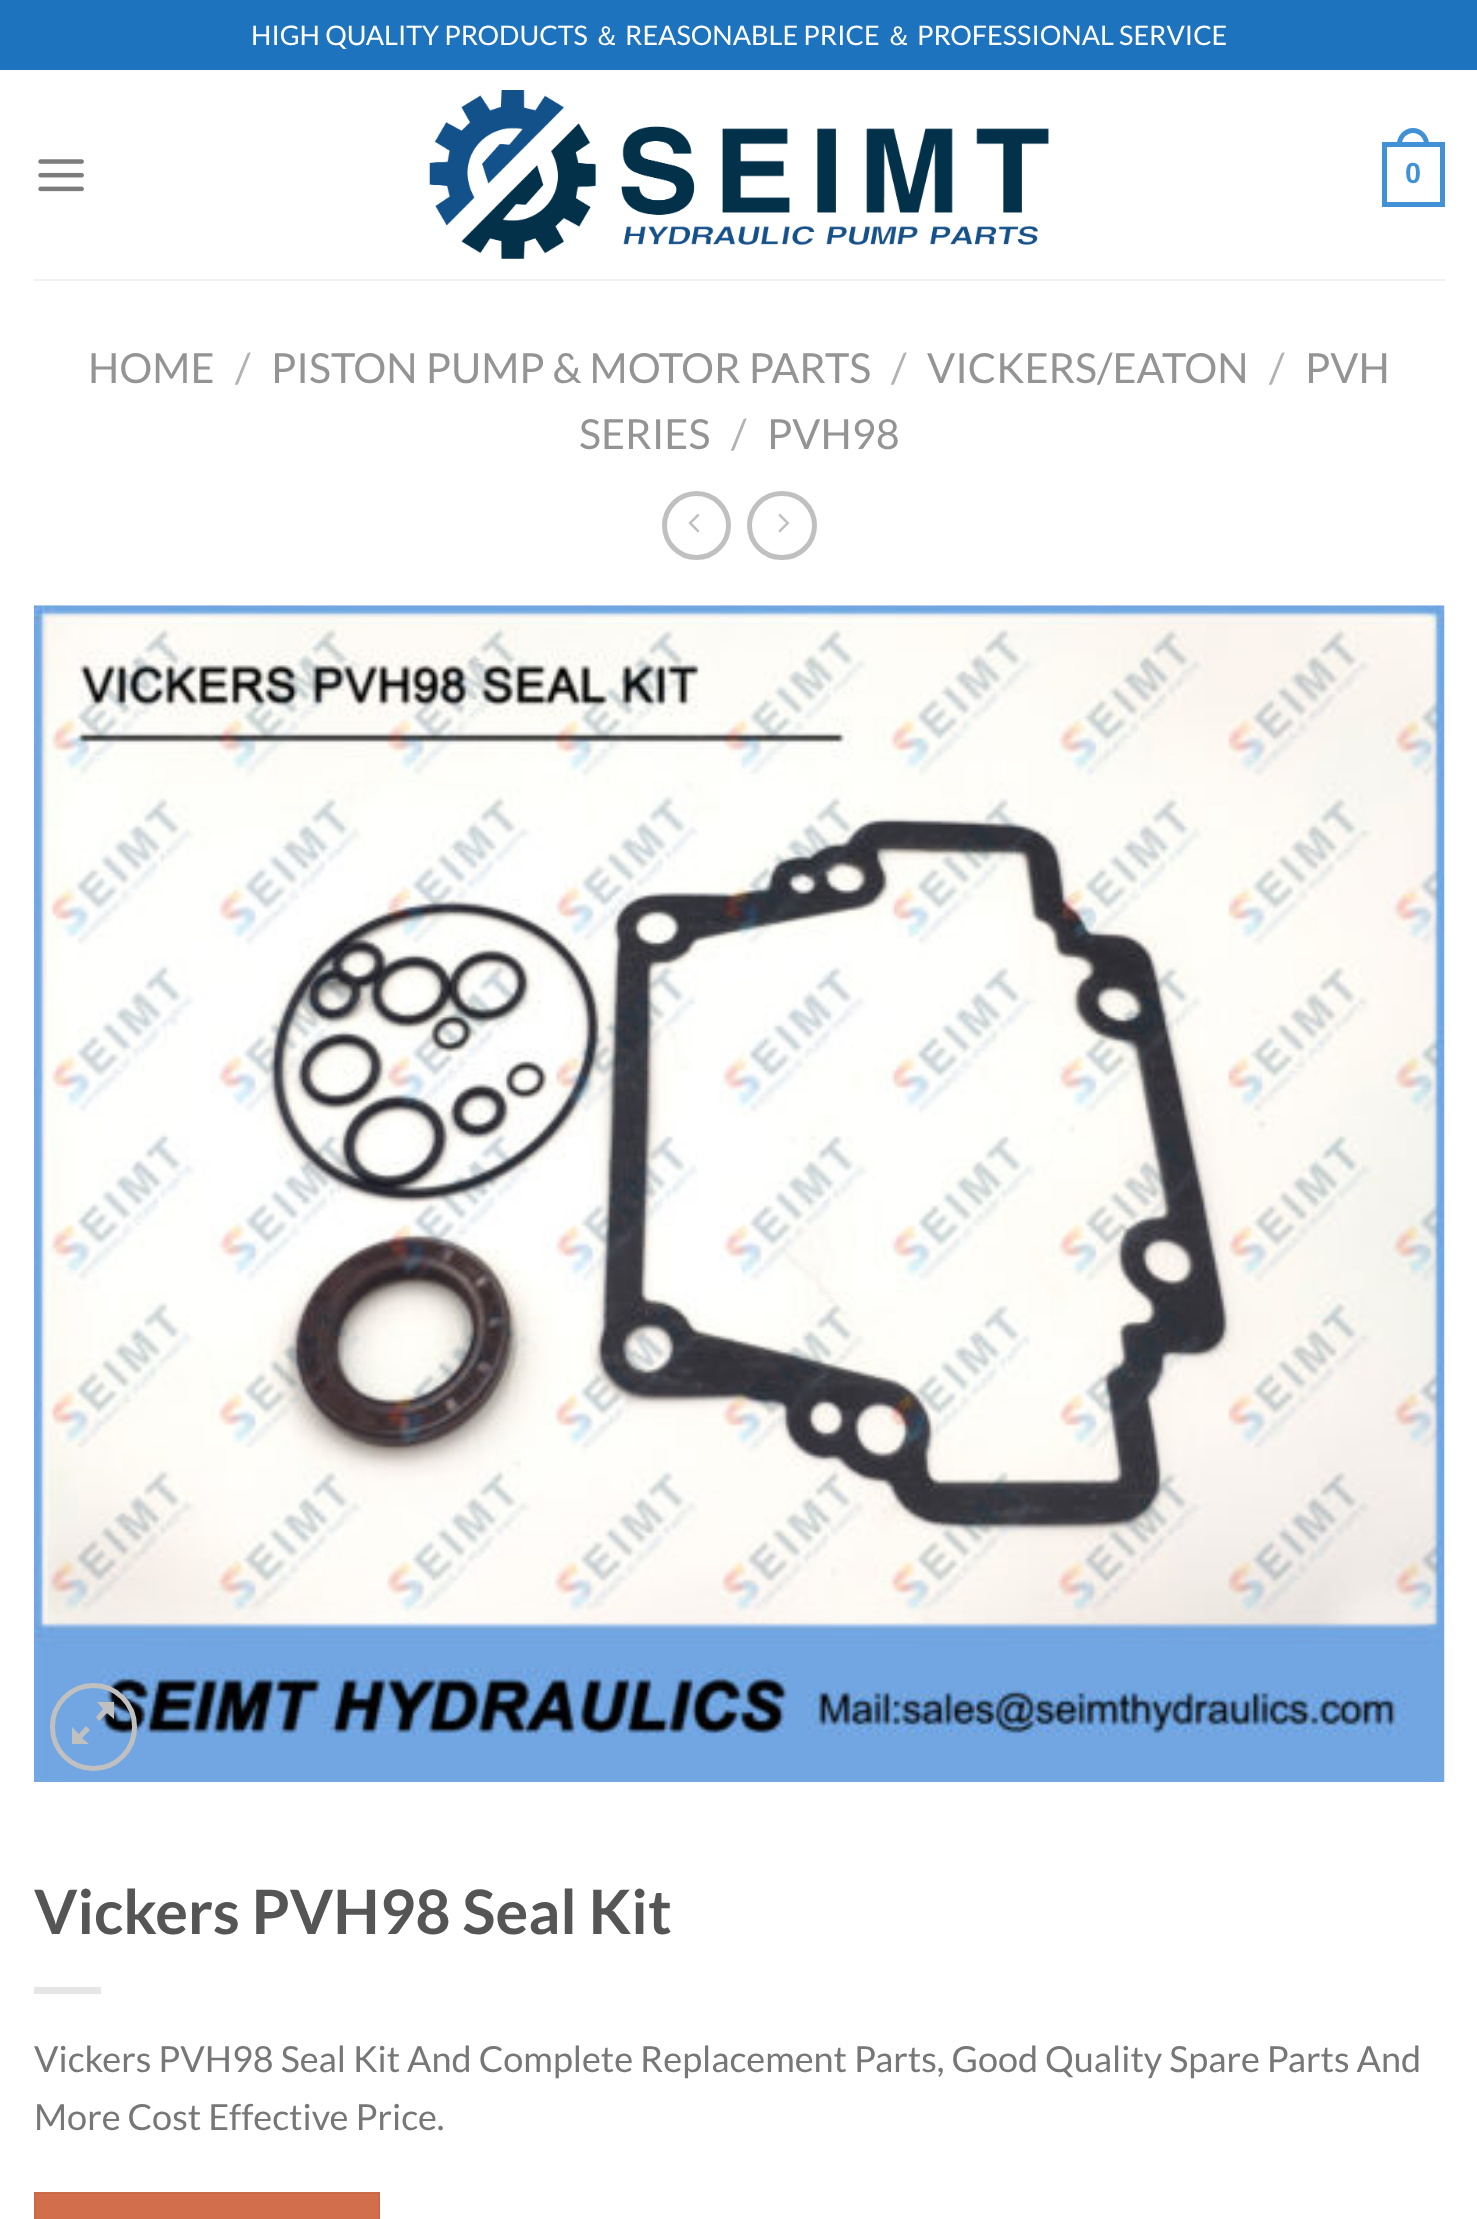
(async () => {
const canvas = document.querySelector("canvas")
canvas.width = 1477
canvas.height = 2219
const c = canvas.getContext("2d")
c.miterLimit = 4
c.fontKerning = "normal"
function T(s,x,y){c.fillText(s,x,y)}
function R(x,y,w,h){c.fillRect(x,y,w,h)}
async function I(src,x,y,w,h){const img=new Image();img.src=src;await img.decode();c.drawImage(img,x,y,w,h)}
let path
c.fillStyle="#fff"
R(0,0,1477,2219)
c.fillStyle="#1e73be"
R(0,0,1477,70)
c.font="27px Lato"
c.fillStyle="#fff"
T("HIGH QUALITY PRODUCTS",251,45)
c.font="500 27px WenQuanYi Zen Hei"
T("＆",593,45)
c.font="27px Lato"
T("REASONABLE PRICE",625,45)
c.font="500 27px WenQuanYi Zen Hei"
T("＆",885,45)
c.font="27px Lato"
T("PROFESSIONAL SERVICE",917,45)
await I("1.png",38,159,46,33)
await I("2.png",429,90,620,169)
c.strokeStyle="#4191d6"
c.lineWidth=5
c.strokeRect(1384.5,144.5,58,60)
c.fillStyle="#4191d6"
path = new Path2D("M1413 128c8.5 0 16 7.5 16 16v2h-32v-2c0-8.5 7.5-16 16-16zm0 5c6 0 11 5 11 11v2h-22v-2c0-6 5-11 11-11z")
c.fill(path,"evenodd")
c.font="bold 29px Liberation Sans"
T("0",1405,183)
c.fillStyle="#f1f1f1"
R(34,279,1411,2)
c.font="41.4px Lato"
c.fillStyle="#949494"
T("HOME",88,383)
c.fillStyle="#b2b2b2"
T("/",235,383)
c.fillStyle="#949494"
T("PISTON PUMP & MOTOR PARTS",271,383)
c.fillStyle="#b2b2b2"
T("/",891,383)
c.fillStyle="#949494"
T("VICKERS/EATON",927,383)
c.fillStyle="#b2b2b2"
T("/",1269,383)
c.fillStyle="#949494"
T("PVH",1305,383)
T("SERIES",579,449)
c.fillStyle="#b2b2b2"
T("/",731,449)
c.fillStyle="#949494"
T("PVH98",767,449)
c.beginPath()
c.arc(696.5,525.5,32,0,7)
c.strokeStyle="#c0c0c0"
c.stroke()
await I("3.png",688,513,12,20)
c.beginPath()
c.roundRect(749.5,493.5,65,64,32)
c.stroke()
await I("4.png",778,513,12,20)
await I("5.png",33,605,1412,1177)
c.beginPath()
c.roundRect(52.5,1685.5,82,83,41)
c.stroke()
c.fillStyle="#c0c0c0"
path = new Path2D("M114 1702v17l-7-6l-8 8l-3-4l7-8l-6-7zm-24 28l-8 8l7 6h-17v-17l7 7l7-8z")
c.fill(path)
c.font="bold 61.25px Lato"
c.fillStyle="#555"
T("Vickers PVH98 Seal Kit",34,1934)
c.fillStyle="#e6e6e6"
R(34,1987,67,7)
c.font="36px Lato"
c.fillStyle="#777"
T("Vickers PVH98 Seal Kit And Complete Replacement Parts, Good Quality Spare Parts And",34,2072)
T("More Cost Effective Price.",34,2130)
c.fillStyle="#d26e4b"
c.beginPath()
c.rect(35,2193,344,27)
c.fill()
c.strokeStyle="#c86947"
c.lineWidth=2
c.stroke()
})()
